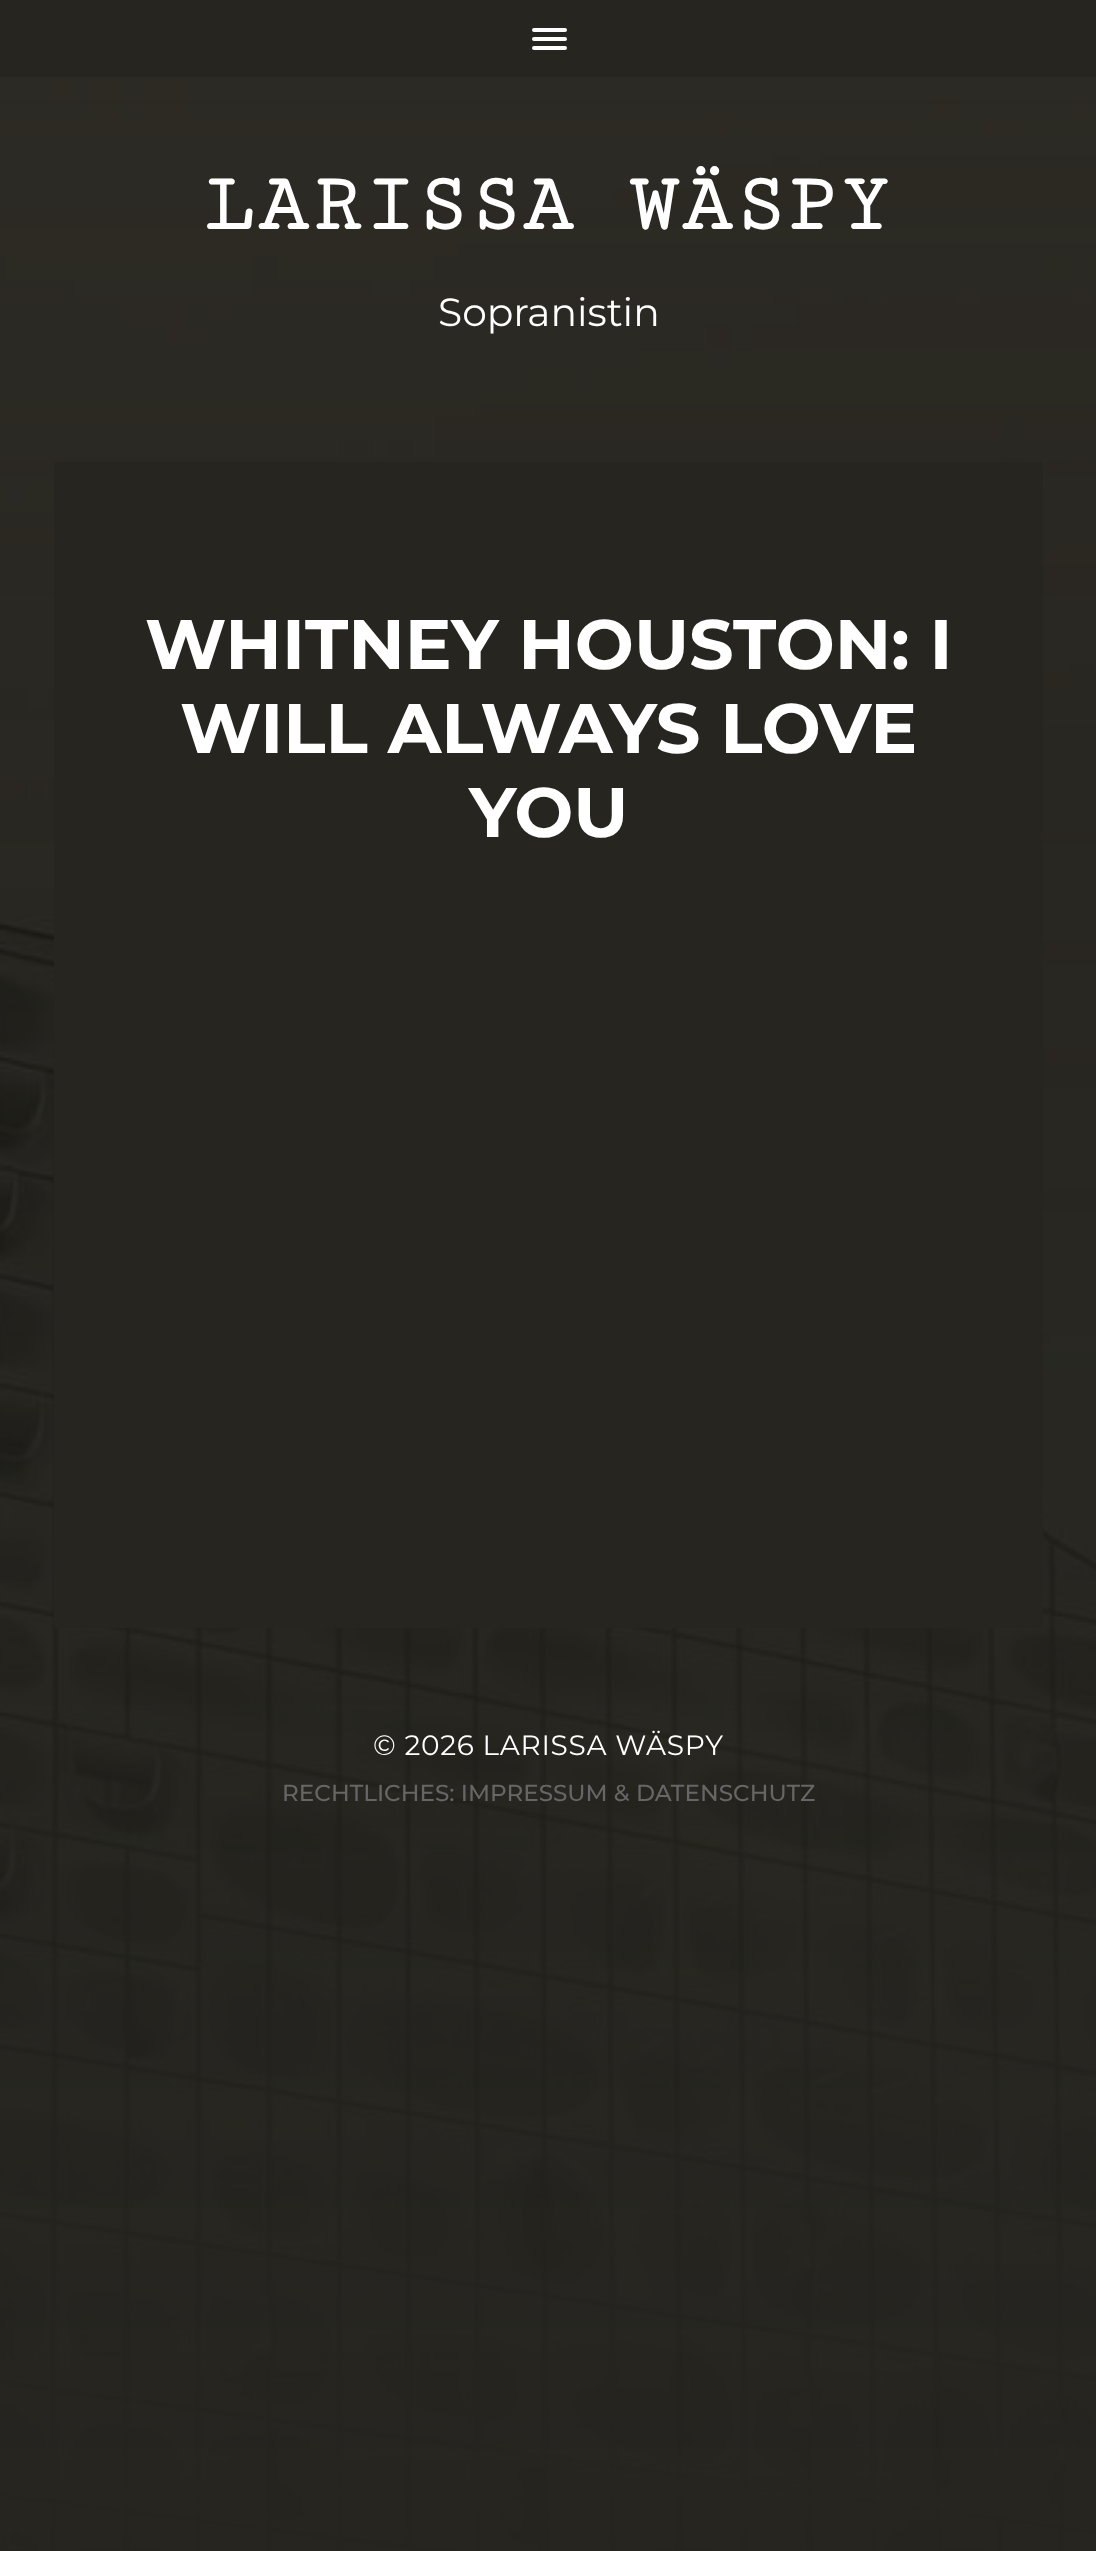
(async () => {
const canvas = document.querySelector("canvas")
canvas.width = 1096
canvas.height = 2551
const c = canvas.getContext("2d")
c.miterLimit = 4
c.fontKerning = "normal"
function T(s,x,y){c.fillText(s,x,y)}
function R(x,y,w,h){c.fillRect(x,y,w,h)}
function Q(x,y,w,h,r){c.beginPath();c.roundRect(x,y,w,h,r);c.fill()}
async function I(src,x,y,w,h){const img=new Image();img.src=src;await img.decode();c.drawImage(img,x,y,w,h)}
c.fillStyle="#272520"
R(0,0,1096,2551)
c.fillStyle="#fff"
Q(532,28,35,4,2)
Q(532,37,35,4,2)
Q(532,46,35,4,2)
await I("1.png",0,77,1096,2474)
c.letterSpacing="2.1px"
c.font="bold 84px Cutive Mono"
T("LARISSA WÄSPY",204,229)
c.letterSpacing="0px"
c.font="39.25px Montserrat"
T("Sopranistin",438,326)
c.fillStyle="#262520"
R(54,462,989,1166)
c.font="bold 70px Montserrat"
c.fillStyle="#fff"
T("WHITNEY HOUSTON: I",145,669)
T("WILL ALWAYS LOVE",180,753)
T("YOU",469,837)
c.letterSpacing="0.7px"
c.font="28px Montserrat"
T("© 2026 LARISSA WÄSPY",373,1755)
c.letterSpacing="0px"
c.font="500 23.1px Montserrat"
c.fillStyle="#666"
T("RECHTLICHES: IMPRESSUM & DATENSCHUTZ",282,1801)
})()
